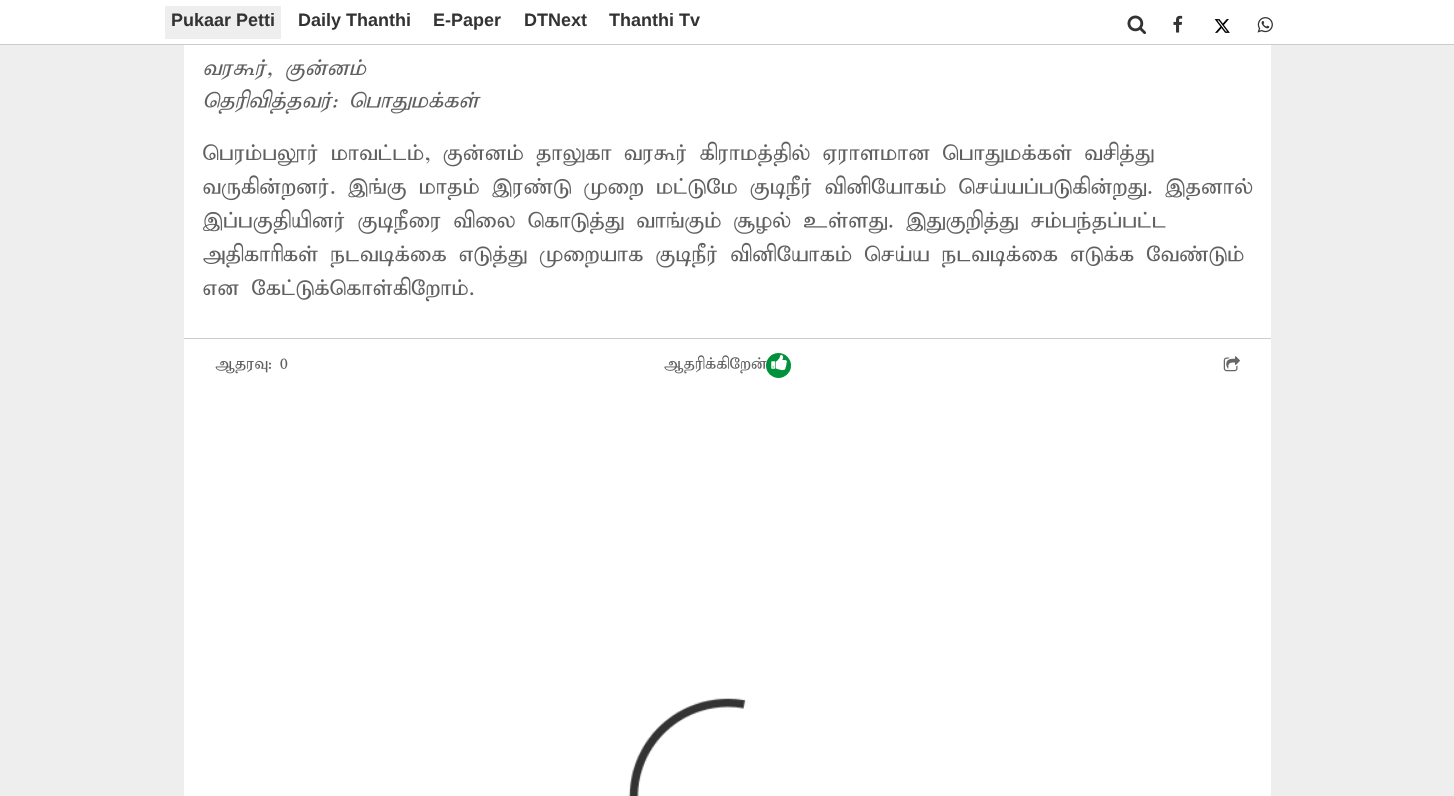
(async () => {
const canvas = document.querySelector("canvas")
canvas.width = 1454
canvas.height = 796
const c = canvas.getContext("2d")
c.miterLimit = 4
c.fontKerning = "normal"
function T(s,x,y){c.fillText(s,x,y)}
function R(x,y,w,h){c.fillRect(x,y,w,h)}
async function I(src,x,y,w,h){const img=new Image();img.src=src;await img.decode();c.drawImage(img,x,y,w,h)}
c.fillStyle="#eee"
R(0,0,1454,796)
c.fillStyle="#fff"
R(0,0,1454,44)
c.fillStyle="#ccc"
R(0,44,1454,1)
c.fillStyle="#eee"
R(165,6,116,33)
c.font="bold 18px Liberation Sans"
c.fillStyle="#333"
T("Pukaar Petti",171,26)
T("Daily Thanthi",298,26)
T("E-Paper",433,26)
T("DTNext",524,26)
T("Thanthi Tv",609,26)
await I("1.png",1173,15,10,18)
await I("2.png",1214,19,16,14)
await I("3.png",1257,17,16,16)
await I("4.png",1127,15,20,20)
c.fillStyle="#fff"
R(184,45,1087,751)
await I("5.png",204,59,64,21)
await I("6.png",267,59,100,23)
await I("7.png",204,89,134,25)
await I("8.png",351,91,130,23)
await I("9.png",203,141,951,26)
await I("10.png",203,175,1050,26)
await I("11.png",203,209,963,25)
await I("12.png",203,242,1041,26)
await I("13.png",203,276,271,26)
c.fillStyle="#ccc"
R(184,338,1087,1)
await I("14.png",215,360,56,14)
await I("15.png",280,358,8,11)
await I("16.png",664,355,103,19)
c.fillStyle="#00913b"
c.beginPath()
c.arc(778.5,365.5,12.5,0,7)
c.fill()
await I("17.png",771,355,16,15)
await I("18.png",1223,356,17,16)
await I("19.png",628,698,118,98)
})()
